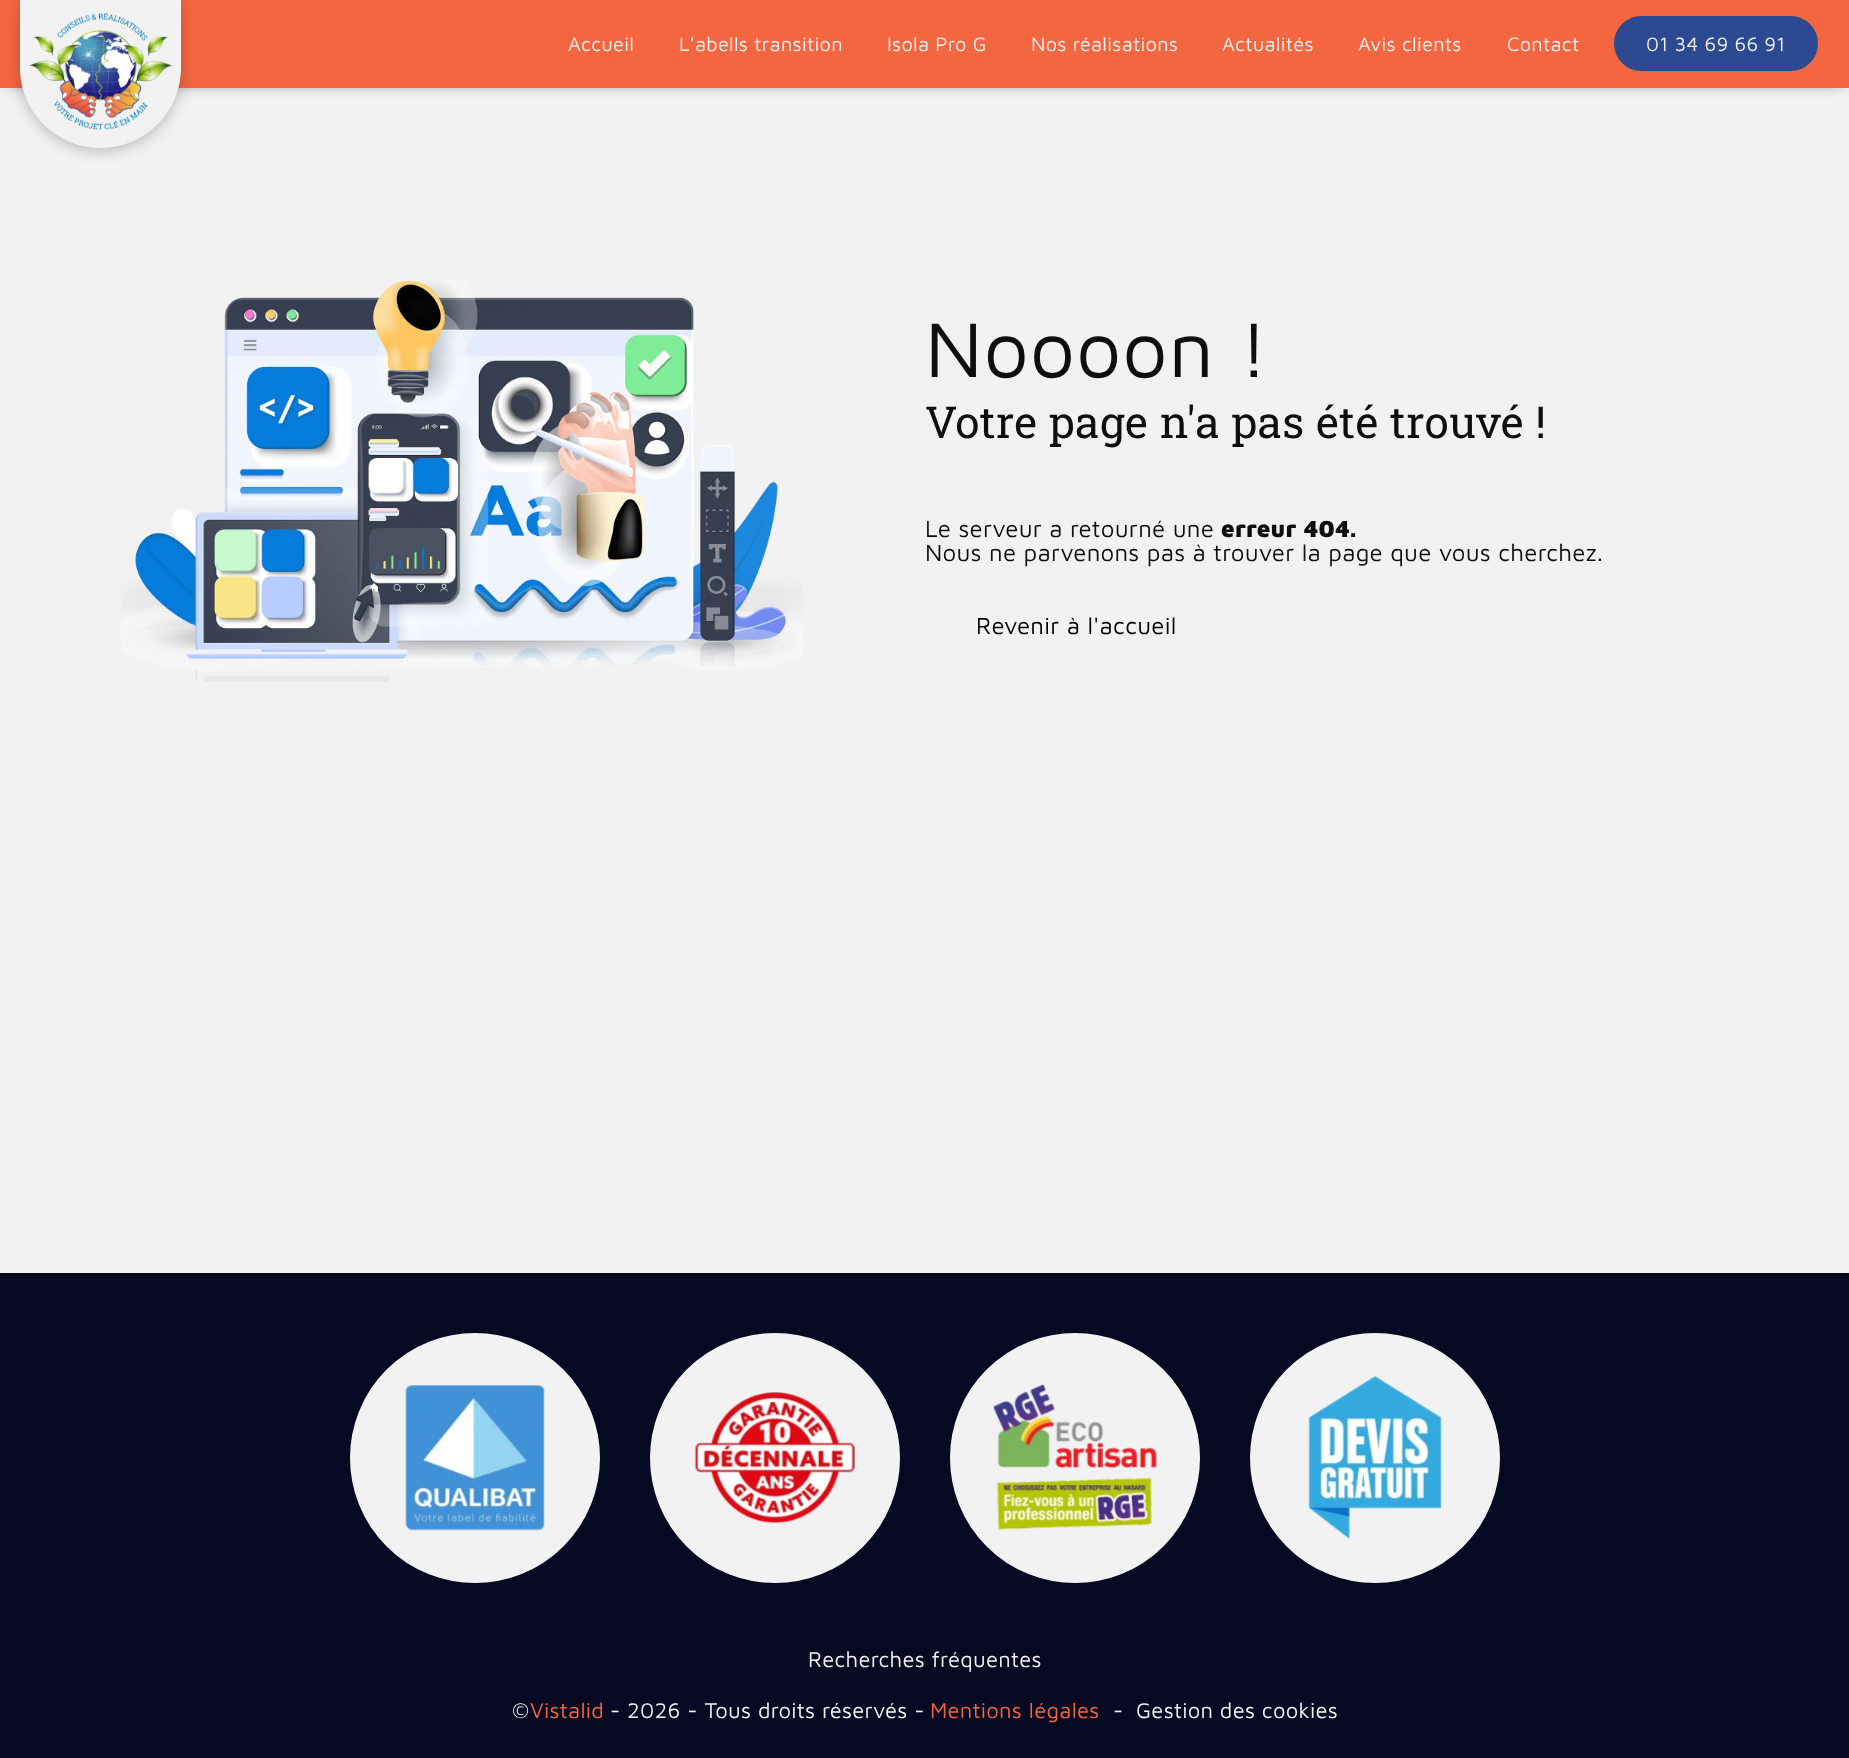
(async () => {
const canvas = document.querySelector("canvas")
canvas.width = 1849
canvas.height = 1758
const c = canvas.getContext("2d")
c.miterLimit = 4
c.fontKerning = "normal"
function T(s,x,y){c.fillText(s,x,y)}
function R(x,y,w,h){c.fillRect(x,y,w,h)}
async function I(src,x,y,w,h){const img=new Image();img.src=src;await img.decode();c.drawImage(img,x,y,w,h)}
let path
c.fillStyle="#f2f2f2"
R(0,0,1849,1758)
c.fillStyle="#0e0e11"
c.filter="blur(9px)"
c.beginPath()
c.rect(9,9,1832,70)
c.fill()
c.filter="none"
c.fillStyle="#f4663f"
R(0,0,1849,88)
c.fillStyle="#0e0e1140"
c.filter="blur(7px)"
c.beginPath()
c.roundRect(20,-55,161,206,80.5)
c.fill()
c.filter="none"
c.fillStyle="#f2f2f2"
path = new Path2D("M20-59h161v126.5c0 44.5-36 80.5-80.5 80.5c-44.5 0-80.5-36-80.5-80.5z")
c.fill(path)
await I("1.png",28,12,145,118)
c.letterSpacing="0.25px"
c.font="20px Maven Pro"
T("Accueil",568,51)
T("L'abells transition",679,51)
T("Isola Pro G",887,51)
T("Nos réalisations",1031,51)
T("Actualités",1222,51)
T("Avis clients",1358,51)
T("Contact",1507,51)
c.fillStyle="#2c4a91"
c.beginPath()
c.roundRect(1615.5,17.5,201,52,26)
c.fill()
c.strokeStyle="#2c4a91"
c.lineWidth=3
c.stroke()
c.fillStyle="#f2f2f2"
T("01 34 69 66 91",1646,51)
await I("2.png",121,280,682,402)
c.letterSpacing="0.75px"
c.font="80px Maven Pro"
c.fillStyle="#0e0e11"
T("Noooon !",925,377)
c.letterSpacing="0.45px"
c.font="44px Roboto Slab"
T("Votre page n'a pas été trouvé !",925,438)
c.letterSpacing="0.25px"
c.font="24px Maven Pro"
T("Le serveur a retourné une",925,537)
c.font="900 24px Maven Pro"
T("erreur 404.",1221,537)
c.font="24px Maven Pro"
T("Nous ne parvenons pas à trouver la page que vous cherchez.",925,561)
c.fillStyle="#000"
T("Revenir à l'accueil",976,634)
c.fillStyle="#070821"
R(0,1273,1849,485)
c.fillStyle="#f2f2f2"
c.beginPath()
c.arc(475,1458,123.5,0,7)
c.fill()
c.strokeStyle="#f2f2f2"
c.stroke()
await I("3.png",405,1385,140,146)
c.beginPath()
c.arc(775,1458,123.5,0,7)
c.fill()
c.stroke()
await I("4.png",694,1392,161,132)
c.beginPath()
c.arc(1075,1458,123.5,0,7)
c.fill()
c.stroke()
await I("5.png",993,1384,164,147)
c.beginPath()
c.arc(1375,1458,123.5,0,7)
c.fill()
c.stroke()
await I("6.png",1308,1376,134,164)
c.font="22px Maven Pro"
T("Recherches fréquentes",808,1667)
T("©",512,1718)
c.fillStyle="#f4663f"
T("Vistalid",530,1718)
c.fillStyle="#f2f2f2"
T("- 2026 - Tous droits réservés -",610,1718)
c.fillStyle="#f4663f"
T("Mentions légales",930,1718)
c.fillStyle="#f2f2f2"
T("-",1113,1718)
T("Gestion des cookies",1136,1718)
})()
